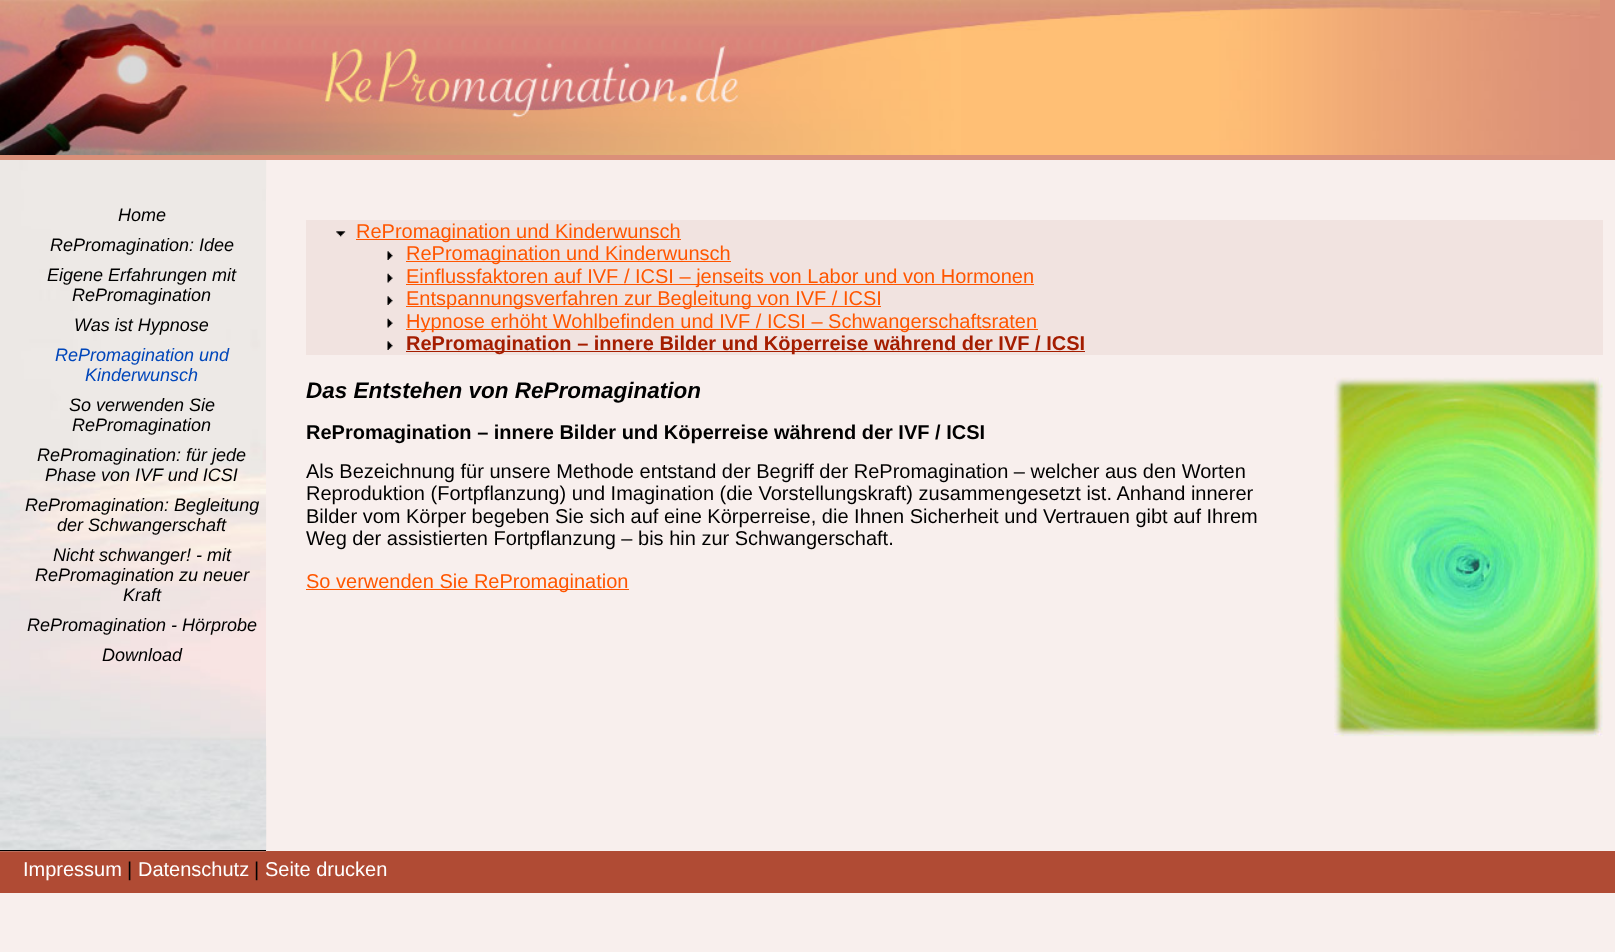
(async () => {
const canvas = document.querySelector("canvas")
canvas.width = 1615
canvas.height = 952
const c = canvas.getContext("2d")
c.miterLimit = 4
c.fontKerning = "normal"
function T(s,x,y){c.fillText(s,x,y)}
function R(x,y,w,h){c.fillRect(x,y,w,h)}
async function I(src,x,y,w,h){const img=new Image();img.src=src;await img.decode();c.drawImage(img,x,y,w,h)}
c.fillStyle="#f8efed"
R(0,0,1615,952)
c.fillStyle="#da9079"
R(0,0,1615,160)
await I("1.png",961,0,639,155)
await I("2.png",0,0,961,155)
c.fillStyle="#b04b34"
R(0,851,1615,42)
await I("3.png",0,160,267,692)
c.fillStyle="#000"
R(0,850,266,1)
c.font="italic 18px Liberation Sans"
T("Home",118,221)
T("RePromagination: Idee",50,251)
T("Eigene Erfahrungen mit",47,281)
T("RePromagination",72,301)
T("Was ist Hypnose",74,331)
c.fillStyle="#0046ba"
T("RePromagination und",55,361)
T("Kinderwunsch",85,381)
c.fillStyle="#000"
T("So verwenden Sie",69,411)
T("RePromagination",72,431)
T("RePromagination: für jede",37,461)
T("Phase von IVF und ICSI",45,481)
T("RePromagination: Begleitung",25,511)
T("der Schwangerschaft",57,531)
T("Nicht schwanger! - mit",53,561)
T("RePromagination zu neuer",35,581)
T("Kraft",123,601)
T("RePromagination - Hörprobe",27,631)
T("Download",102,661)
c.fillStyle="#f8efed"
R(266,189,1,557)
c.fillStyle="#f1e3e0"
R(306,220,1297,135)
await I("4.png",336,231,10,6)
c.fillStyle="#ff5600"
R(356,239,325,1)
c.font="20px Liberation Sans"
T("RePromagination und Kinderwunsch",356,238)
await I("5.png",387,251,6,9)
R(406,261,325,1)
T("RePromagination und Kinderwunsch",406,260)
await I("6.png",387,273,6,10)
R(406,284,628,1)
T("Einflussfaktoren auf IVF / ICSI – jenseits von Labor und von Hormonen",406,283)
await I("5.png",387,296,6,9)
R(406,306,475,1)
T("Entspannungsverfahren zur Begleitung von IVF / ICSI",406,305)
await I("6.png",387,318,6,10)
R(406,329,632,1)
T("Hypnose erhöht Wohlbefinden und IVF / ICSI – Schwangerschaftsraten",406,328)
await I("5.png",387,341,6,9)
c.fillStyle="#a41d00"
R(406,351,679,1)
c.font="bold 20px Liberation Sans"
T("RePromagination – innere Bilder und Köperreise während der IVF / ICSI",406,350)
c.font="italic bold 22.5px Liberation Sans"
c.fillStyle="#000"
T("Das Entstehen von RePromagination",306,398)
await I("7.png",1334,377,269,360)
c.font="bold 20px Liberation Sans"
T("RePromagination – innere Bilder und Köperreise während der IVF / ICSI",306,439)
c.font="20px Liberation Sans"
T("Als Bezeichnung für unsere Methode entstand der Begriff der RePromagination – welcher aus den Worten",306,478)
T("Reproduktion (Fortpflanzung) und Imagination (die Vorstellungskraft) zusammengesetzt ist. Anhand innerer",306,500)
T("Bilder vom Körper begeben Sie sich auf eine Körperreise, die Ihnen Sicherheit und Vertrauen gibt auf Ihrem",306,523)
T("Weg der assistierten Fortpflanzung – bis hin zur Schwangerschaft.",306,545)
c.fillStyle="#ff5600"
R(306,589,323,1)
T("So verwenden Sie RePromagination",306,588)
c.fillStyle="#fff"
T("Impressum",23,876)
c.fillStyle="#000"
T("|",127,876)
c.fillStyle="#fff"
T("Datenschutz",138,876)
c.fillStyle="#000"
T("|",254,876)
c.fillStyle="#fff"
T("Seite drucken",265,876)
})()
